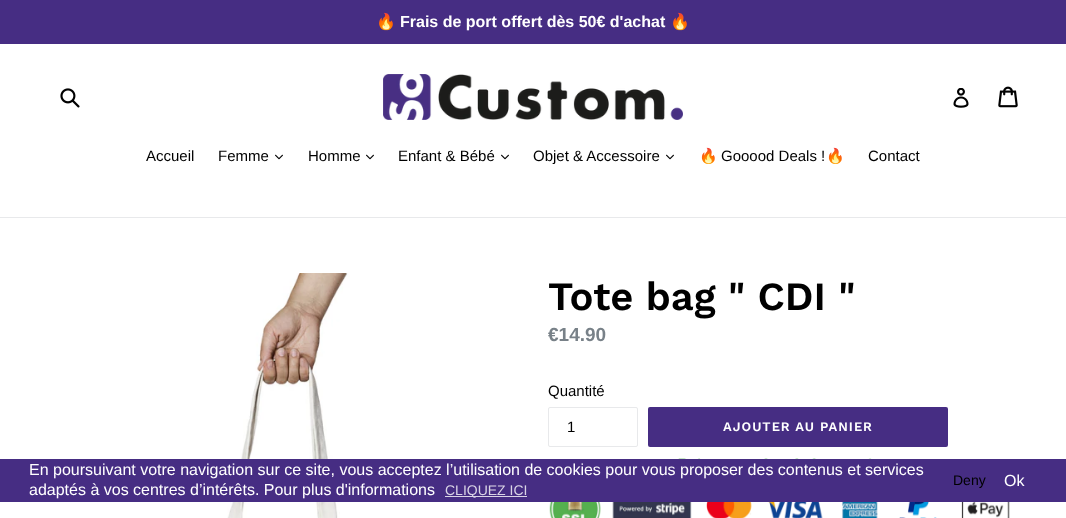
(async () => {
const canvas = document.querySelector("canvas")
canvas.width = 1066
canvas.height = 518
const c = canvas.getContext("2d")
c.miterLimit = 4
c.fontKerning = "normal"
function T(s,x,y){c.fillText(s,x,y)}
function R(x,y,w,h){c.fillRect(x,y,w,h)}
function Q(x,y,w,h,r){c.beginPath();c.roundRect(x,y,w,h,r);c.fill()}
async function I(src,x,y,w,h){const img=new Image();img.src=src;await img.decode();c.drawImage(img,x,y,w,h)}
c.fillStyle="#fff"
R(0,0,1066,518)
c.fillStyle="#462d83"
R(0,0,1066,44)
c.font="bold 16px Noto Color Emoji"
c.fillStyle="#fff"
T("🔥",376,27)
c.font="bold 16px Liberation Sans"
T("Frais de port offert dès 50€ d'achat",400,27)
c.font="bold 16px Noto Color Emoji"
T("🔥",670,27)
await I("1.png",60,88,20,20)
await I("2.png",383,74,300,46)
await I("3.png",953,88,16,20)
await I("4.png",998,86,20,22)
c.fillStyle="#e8e9eb"
R(0,217,1066,1)
c.font="15px Liberation Sans"
c.fillStyle="#000"
T("Accueil",146,161)
T("Femme",218,161)
await I("5.png",275,154,8,6)
T("Homme",308,161)
await I("5.png",366,154,8,6)
T("Enfant & Bébé",398,161)
await I("5.png",501,154,8,6)
T("Objet & Accessoire",533,161)
await I("5.png",666,154,8,6)
c.font="15px Noto Color Emoji"
T("🔥",699,161)
c.font="15px Liberation Sans"
T("Gooood Deals !",721,161)
c.font="15px Noto Color Emoji"
T("🔥",826,161)
c.font="15px Liberation Sans"
T("Contact",868,161)
await I("6.png",227,273,123,245)
c.font="600 40px Work Sans"
T("Tote bag \" CDI \"",548,310)
c.font="bold 19px Liberation Sans"
c.fillStyle="#788188"
T("€14.90",548,341)
c.font="15px Liberation Sans"
c.fillStyle="#000"
T("Quantité",548,396)
c.beginPath()
c.roundRect(548.5,407.5,89,39,1.5)
c.strokeStyle="#e8e9eb"
c.stroke()
T("1",567,432)
c.fillStyle="#462d83"
Q(648,407,300,40,2)
c.letterSpacing="1px"
c.font="600 13px Work Sans"
c.fillStyle="#fff"
T("AJOUTER AU PANIER",723,431)
await I("7.png",549,458,461,60)
c.fillStyle="#462d83"
R(0,459,1066,43)
c.letterSpacing="0px"
c.font="16px Liberation Sans"
c.fillStyle="#fff"
T("En poursuivant votre navigation sur ce site, vous acceptez l’utilisation de cookies pour vous proposer des contenus et services",29,475)
T("adaptés à vos centres d’intérêts. Pour plus d'informations",29,495)
c.fillStyle="#dad5e6"
R(445,496,82,1)
c.font="14px Liberation Sans"
T("CLIQUEZ ICI",445,495)
c.fillStyle="#000"
T("Deny",953,485)
c.font="16px Liberation Sans"
c.fillStyle="#fff"
T("Ok",1004,486)
})()
